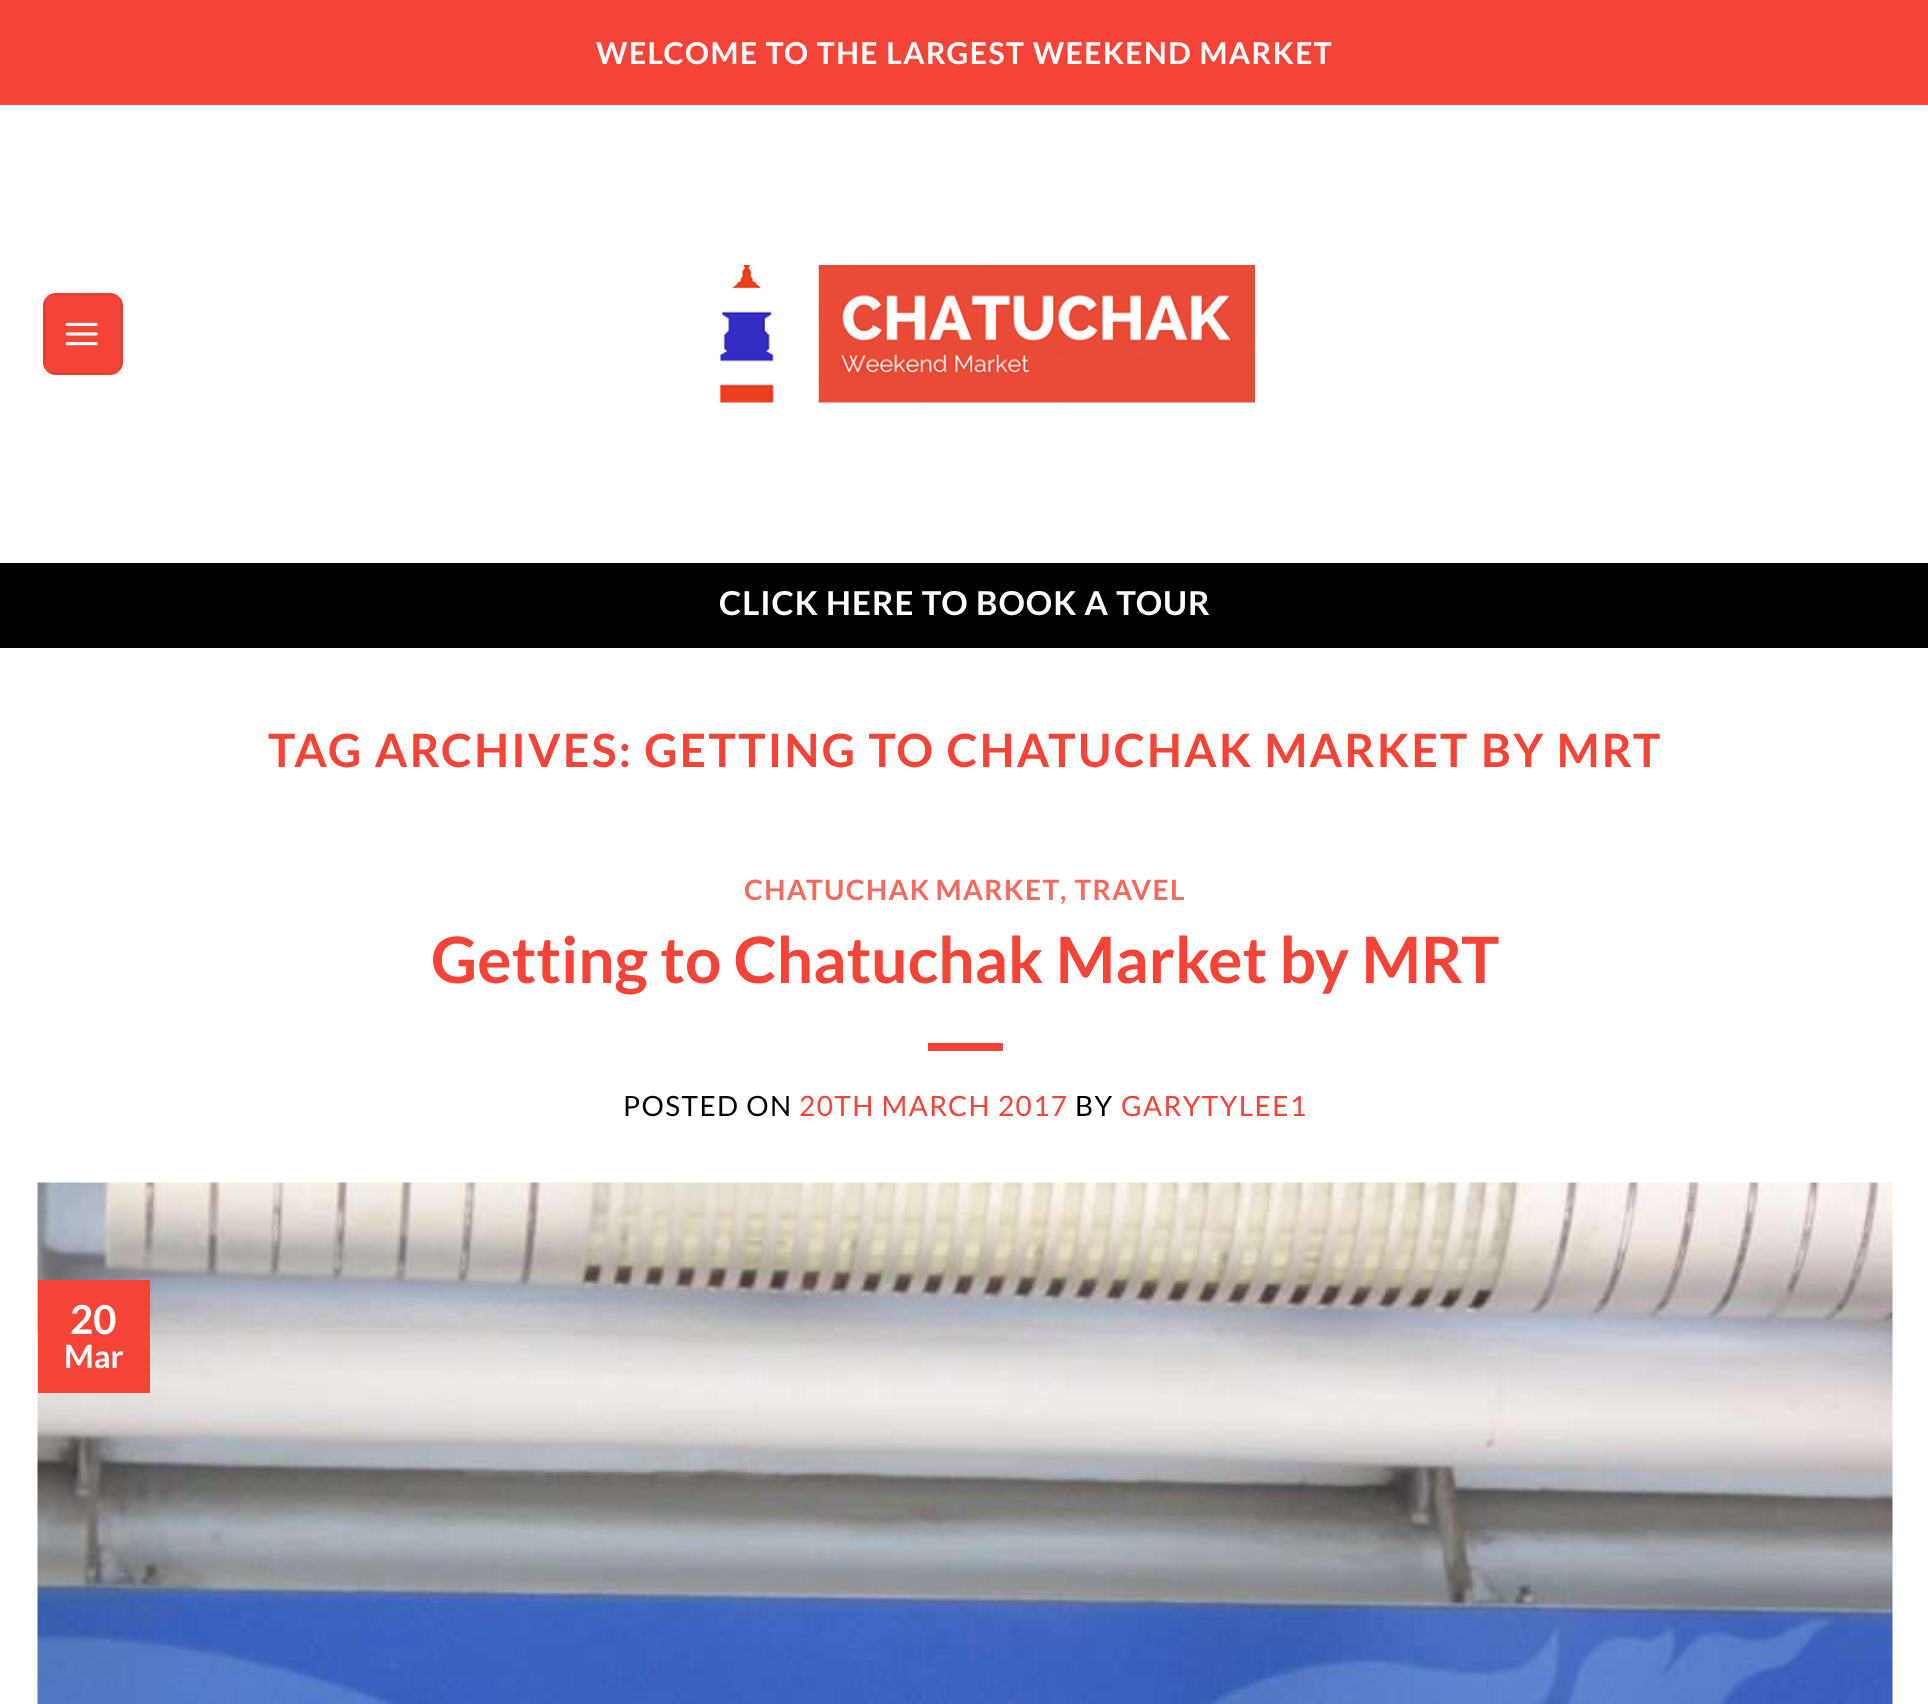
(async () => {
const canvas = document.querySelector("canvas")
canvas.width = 1928
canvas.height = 1704
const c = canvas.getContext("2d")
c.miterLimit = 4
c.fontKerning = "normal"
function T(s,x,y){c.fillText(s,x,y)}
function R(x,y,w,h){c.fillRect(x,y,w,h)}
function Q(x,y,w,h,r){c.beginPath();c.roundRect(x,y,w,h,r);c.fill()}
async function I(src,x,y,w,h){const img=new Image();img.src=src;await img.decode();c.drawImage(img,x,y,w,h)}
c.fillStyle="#fff"
R(0,0,1928,1704)
c.fillStyle="#f44337"
R(0,0,1928,105)
c.letterSpacing="1.5px"
c.font="bold 30px Lato"
c.fillStyle="#fff"
T("WELCOME TO THE LARGEST WEEKEND MARKET",596,64)
c.fillStyle="#f44337"
Q(43,293,80,82,13)
c.strokeStyle="#0000000d"
c.lineWidth=3
c.strokeRect(44.5,294.5,77,79)
await I("1.png",65,322,33,24)
await I("2.png",719,265,536,138)
c.fillStyle="#000"
R(0,563,1928,85)
c.letterSpacing="1px"
c.font="bold 33px Lato"
c.fillStyle="#fff"
T("CLICK HERE TO BOOK A TOUR",719,615)
c.letterSpacing="2.3px"
c.font="bold 46px Lato"
c.fillStyle="#f44337"
T("TAG ARCHIVES: GETTING TO CHATUCHAK MARKET BY MRT",268,767)
c.letterSpacing="1.4px"
c.wordSpacing="-2px"
c.font="bold 28px Lato"
c.fillStyle="#f6695f"
T("CHATUCHAK MARKET",744,900)
c.wordSpacing="0px"
T(", TRAVEL",1060,900)
c.letterSpacing="0px"
c.font="bold 64px Lato"
c.fillStyle="#f44337"
T("Getting to Chatuchak Market by MRT",431,983)
R(928,1043,75,8)
c.letterSpacing="1.4px"
c.font="28px Lato"
c.fillStyle="#000"
T("POSTED ON",623,1116)
c.fillStyle="#f44337"
T("20TH MARCH 2017",799,1116)
c.fillStyle="#000"
T("BY",1075,1116)
c.fillStyle="#f44337"
T("GARYTYLEE1",1121,1116)
await I("3.png",37,1182,1856,522)
R(38,1280,112,113)
c.letterSpacing="0px"
c.font="bold 40px Lato"
c.fillStyle="#fff"
T("20",70,1334)
c.font="bold 32px Lato"
T("Mar",64,1368)
})()
